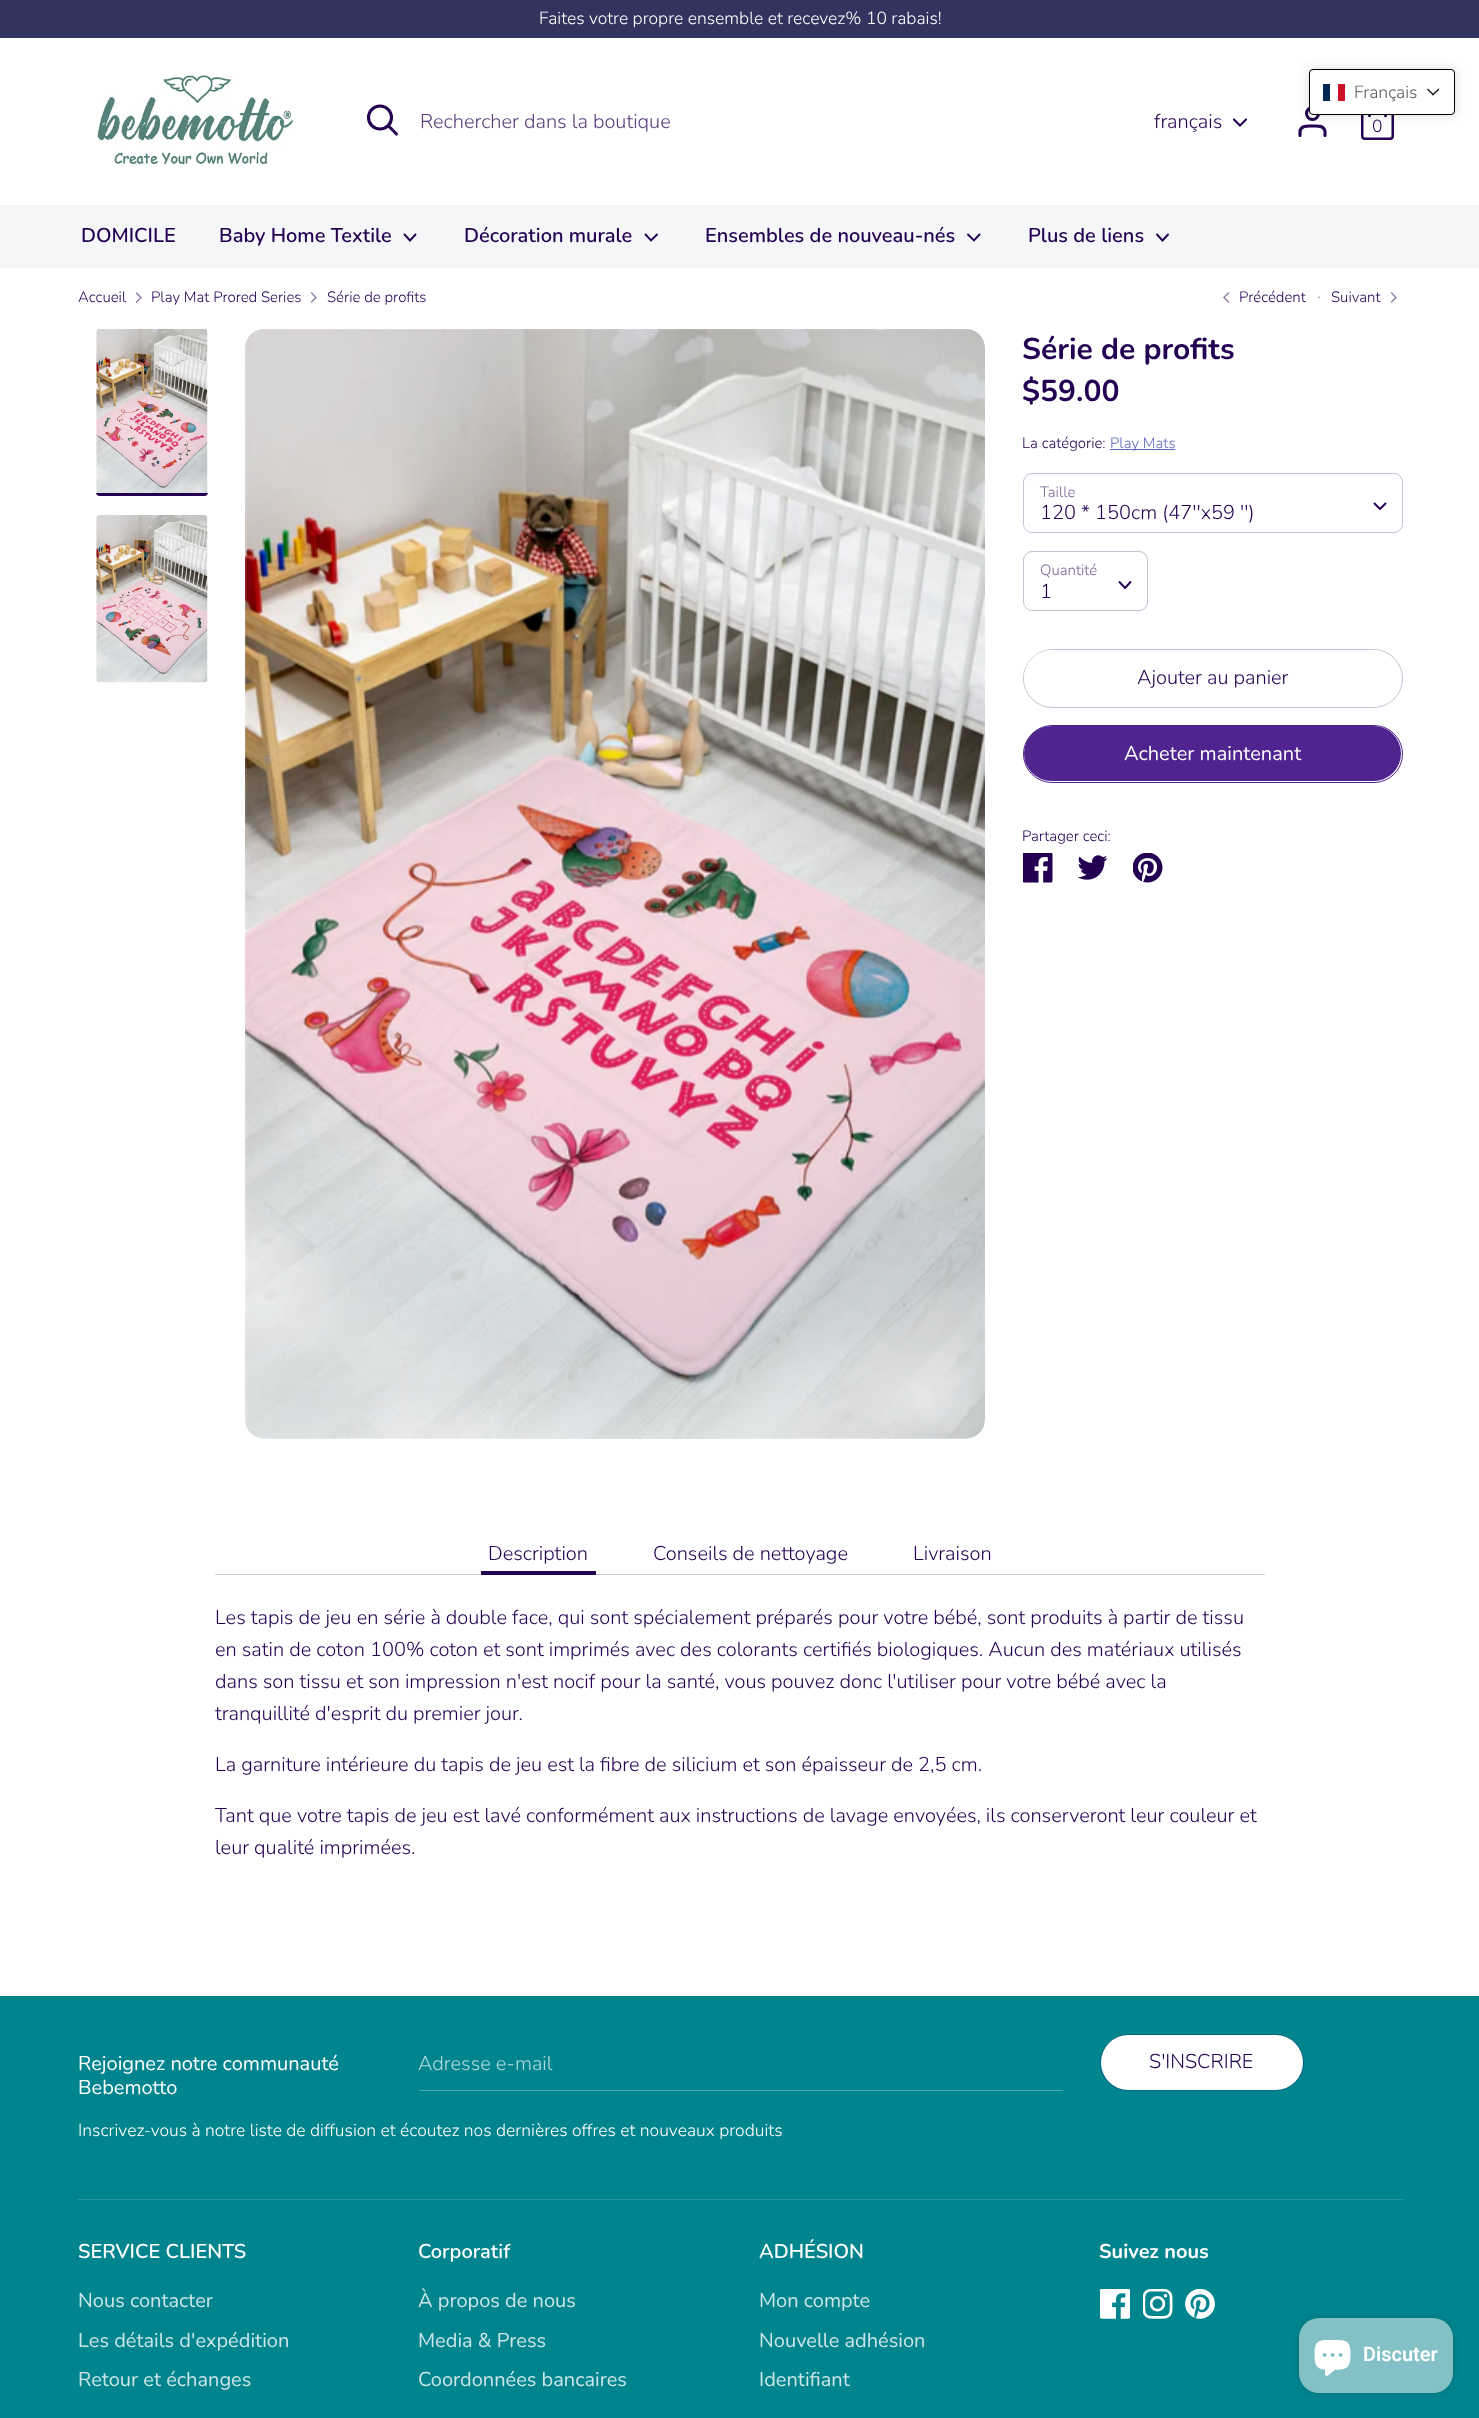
(async () => {
const canvas = document.querySelector("canvas")
canvas.width = 1479
canvas.height = 2418
const c = canvas.getContext("2d")
c.miterLimit = 4
c.fontKerning = "normal"
function T(s,x,y){c.fillText(s,x,y)}
function R(x,y,w,h){c.fillRect(x,y,w,h)}
function Q(x,y,w,h,r){c.beginPath();c.roundRect(x,y,w,h,r);c.fill()}
async function I(src,x,y,w,h){const img=new Image();img.src=src;await img.decode();c.drawImage(img,x,y,w,h)}
let path
c.fillStyle="#fff"
R(0,0,1479,2418)
c.fillStyle="#31345e"
R(0,0,1479,38)
c.font="300 17.5px Nunito"
c.fillStyle="#fff"
T("Faites votre propre ensemble et recevez% 10 rabais!",539,24)
await I("1.png",97,75,198,91)
c.beginPath()
c.arc(380,117.5,11.5,0,7)
c.strokeStyle="#230051"
c.lineWidth=3.1
c.stroke()
path = new Path2D("M396.5 134l-8-8")
c.lineCap="round"
c.stroke(path)
c.font="300 20px Nunito"
c.fillStyle="#5a407d"
T("Rechercher dans la boutique",420,128)
c.fillStyle="#230051"
T("français",1154,128)
path = new Path2D("M1234 119.5l6 6l6-6")
c.lineWidth=2.1
c.stroke(path)
path = new Path2D("M1325 135.5v-4.5c-1.5-6-8-5-12.5-5c-4.5 0-11-1-12.5 5v4.5")
c.lineWidth=3.1
c.stroke(path)
c.beginPath()
c.arc(1312.5,113.5,6,0,7)
c.stroke()
c.beginPath()
c.roundRect(1362.25,112.25,30.5,26.5,2.75)
c.lineWidth=2.5
c.stroke()
path = new Path2D("M1369.5 116v-5.5c0-3.5 3.5-6.5 8-6.5c4.5 0 8 3 8 6.5v5.5")
c.lineWidth=2.7
c.stroke(path)
c.font="300 17.5px Nunito"
T("0",1372,132)
c.fillStyle="#f4f6f8"
R(0,205,1479,63)
c.font="600 20px Nunito"
c.fillStyle="#230051"
T("DOMICILE",81,242)
T("Baby Home Textile",219,242)
path = new Path2D("M404.5 234.5l5.5 6l5.5-6")
c.lineWidth=1.9
c.stroke(path)
T("Décoration murale",464,242)
path = new Path2D("M645.5 234.5l5.5 6l6-6")
c.stroke(path)
T("Ensembles de nouveau-nés",705,242)
path = new Path2D("M968 234.5l6 6l5.5-6")
c.stroke(path)
T("Plus de liens",1028,242)
path = new Path2D("M1157 234.5l5.5 6l5.5-6")
c.stroke(path)
c.fillStyle="#00000026"
c.filter="blur(6px)"
c.beginPath()
c.roundRect(1309,69,146,46,4)
c.fill()
c.filter="none"
c.fillStyle="#fff"
c.beginPath()
c.roundRect(1309.5,69.5,145,45,3.5)
c.fill()
c.strokeStyle="#000"
c.lineWidth=1
c.stroke()
c.fillStyle="#002654"
R(1323,84,7,17)
c.fillStyle="#ce1126"
R(1338,84,7,17)
c.font="300 17.5px Nunito"
c.fillStyle="#5c5c5c"
T("Français",1354,98)
c.fillStyle="#1a1a1a"
path = new Path2D("M1438.5 88.5l1 1l-6.5 6l-1-1z")
c.fill(path)
path = new Path2D("M1428 88.5l6 6l-1 1l-6-6z")
c.fill(path)
c.font="300 15px Nunito"
c.fillStyle="#230051"
T("Accueil",78,302)
path = new Path2D("M136.5 302l4.5-4.5l-4.5-4.5")
c.strokeStyle="#9180a8"
c.lineWidth=1.5
c.stroke(path)
T("Play Mat Prored Series",151,302)
path = new Path2D("M311.5 302l4.5-4.5l-4.5-4.5")
c.stroke(path)
T("Série de profits",327,302)
path = new Path2D("M1228.5 302l-4.5-4.5l4.5-4.5")
c.stroke(path)
T("Précédent",1239,302)
c.font="300 18px Nunito"
c.fillStyle="#9180a8"
T("·",1317,302)
c.font="300 15px Nunito"
c.fillStyle="#230051"
T("Suivant",1331,302)
path = new Path2D("M1391.5 302l4.5-4.5l-4.5-4.5")
c.stroke(path)
await I("2.png",96,328,112,168)
c.save()
c.beginPath()
c.roundRect(96,329,112,167,4)
c.clip()
R(96,493,112,3)
c.restore()
await I("3.png",96,515,112,168)
await I("4.png",245,329,740,1110)
c.font="bold 30px Nunito"
T("Série de profits",1022,359)
T("$59.00",1022,401)
c.font="300 15px Nunito"
T("La catégorie:",1022,448)
c.fillStyle="#5d68bf"
R(1110,449,65,1)
T("Play Mats",1110,448)
c.fillStyle="#7b6697"
T("Taille",1040,497)
c.beginPath()
c.roundRect(1023.5,473.5,379,59,8.5)
c.strokeStyle="#c8bfd4"
c.lineWidth=1
c.stroke()
c.font="300 20px Nunito"
c.fillStyle="#230051"
T("120 * 150cm (47''x59 '')",1040,519)
path = new Path2D("M1374.5 503.5l5.5 5.5l5.5-5.5")
c.strokeStyle="#230051"
c.lineWidth=1.9
c.lineJoin="round"
c.stroke(path)
c.beginPath()
c.roundRect(1023.5,551.5,124,59,8.5)
c.strokeStyle="#c8bfd4"
c.lineWidth=1
c.lineJoin="miter"
c.stroke()
c.font="300 15px Nunito"
c.fillStyle="#7b6697"
T("Quantité",1040,575)
c.font="300 20px Nunito"
c.fillStyle="#230051"
T("1",1040,598)
path = new Path2D("M1119.5 582l5.5 6l5.5-6")
c.strokeStyle="#230051"
c.lineWidth=1.9
c.lineJoin="round"
c.stroke(path)
c.beginPath()
c.roundRect(1023.5,649.5,379,58,29)
c.strokeStyle="#c8bfd4"
c.lineWidth=1
c.lineJoin="miter"
c.stroke()
c.fillStyle="#fff"
Q(1024,650,377,56,28)
c.fillStyle="#230051"
T("Ajouter au panier",1137,684)
c.beginPath()
c.roundRect(1023.5,725.5,379,57,28.5)
c.strokeStyle="#50248f"
c.stroke()
c.fillStyle="#50248f"
Q(1024,726,377,55,27.5)
c.font="20px Nunito"
c.fillStyle="#fff"
T("Acheter maintenant",1124,760)
c.font="300 15px Nunito"
c.fillStyle="#230051"
T("Partager ceci:",1022,841)
await I("5.png",1023,853,30,30)
await I("6.png",1078,855,30,25)
await I("7.png",1133,853,30,30)
c.fillStyle="#d3ccdc"
R(215,1574,1050,1)
c.font="300 20px Nunito"
c.fillStyle="#230051"
T("Description",488,1560)
R(481,1571,115,4)
T("Conseils de nettoyage",653,1560)
T("Livraison",913,1560)
T("Les tapis de jeu en série à double face, qui sont spécialement préparés pour votre bébé, sont produits à partir de tissu",215,1624)
T("en satin de coton 100% coton et sont imprimés avec des colorants certifiés biologiques. Aucun des matériaux utilisés",215,1656)
T("dans son tissu et son impression n'est nocif pour la santé, vous pouvez donc l'utiliser pour votre bébé avec la",215,1688)
T("tranquillité d'esprit du premier jour.",215,1720)
T("La garniture intérieure du tapis de jeu est la fibre de silicium et son épaisseur de 2,5 cm.",215,1771)
T("Tant que votre tapis de jeu est lavé conformément aux instructions de lavage envoyées, ils conserveront leur couleur et",215,1822)
T("leur qualité imprimées.",215,1854)
c.fillStyle="#00848e"
R(0,1996,1479,422)
c.font="20px Nunito"
c.fillStyle="#fff"
T("Rejoignez notre communauté",78,2070)
T("Bebemotto",78,2094)
c.fillStyle="#4da9b0"
R(419,2090,644,1)
c.font="300 20px Nunito"
c.fillStyle="#b3dadd"
T("Adresse e-mail",418,2070)
c.beginPath()
c.roundRect(1100.5,2034.5,203,56,28)
c.strokeStyle="#09637f"
c.stroke()
c.fillStyle="#fff"
Q(1101,2035,202,55,27.5)
c.fillStyle="#230051"
T("S'INSCRIRE",1149,2068)
c.font="300 17.5px Nunito"
c.fillStyle="#fff"
T("Inscrivez-vous à notre liste de diffusion et écoutez nos dernières offres et nouveaux produits",78,2136)
c.fillStyle="#26979f"
R(78,2199,1325,1)
c.font="600 20px Nunito"
c.fillStyle="#fff"
T("SERVICE CLIENTS",78,2258)
c.font="20px Nunito"
c.fillStyle="#cce6e8"
T("Nous contacter",78,2307)
T("Les détails d'expédition",78,2347)
T("Retour et échanges",78,2386)
c.font="600 20px Nunito"
c.fillStyle="#fff"
T("Corporatif",418,2258)
c.font="20px Nunito"
c.fillStyle="#cce6e8"
T("À propos de nous",418,2307)
T("Media & Press",418,2347)
T("Coordonnées bancaires",418,2386)
c.font="600 20px Nunito"
c.fillStyle="#fff"
T("ADHÉSION",759,2258)
c.font="20px Nunito"
c.fillStyle="#cce6e8"
T("Mon compte",759,2307)
T("Nouvelle adhésion",759,2347)
T("Identifiant",759,2386)
c.font="bold 20px Nunito"
c.fillStyle="#fff"
T("Suivez nous",1099,2258)
await I("8.png",1100,2289,30,30)
await I("9.png",1143,2289,30,30)
await I("10.png",1185,2289,30,30)
c.fillStyle="#00000026"
c.filter="blur(3px)"
c.beginPath()
c.roundRect(1299,2318,154,75,20)
c.fill()
c.filter="none"
c.fillStyle="#84c1c7"
Q(1299,2318,154,75,20)
await I("11.png",1314,2340,37,36)
c.font="600 20px Roboto"
c.fillStyle="#fff"
T("Discuter",1363,2361)
})()
